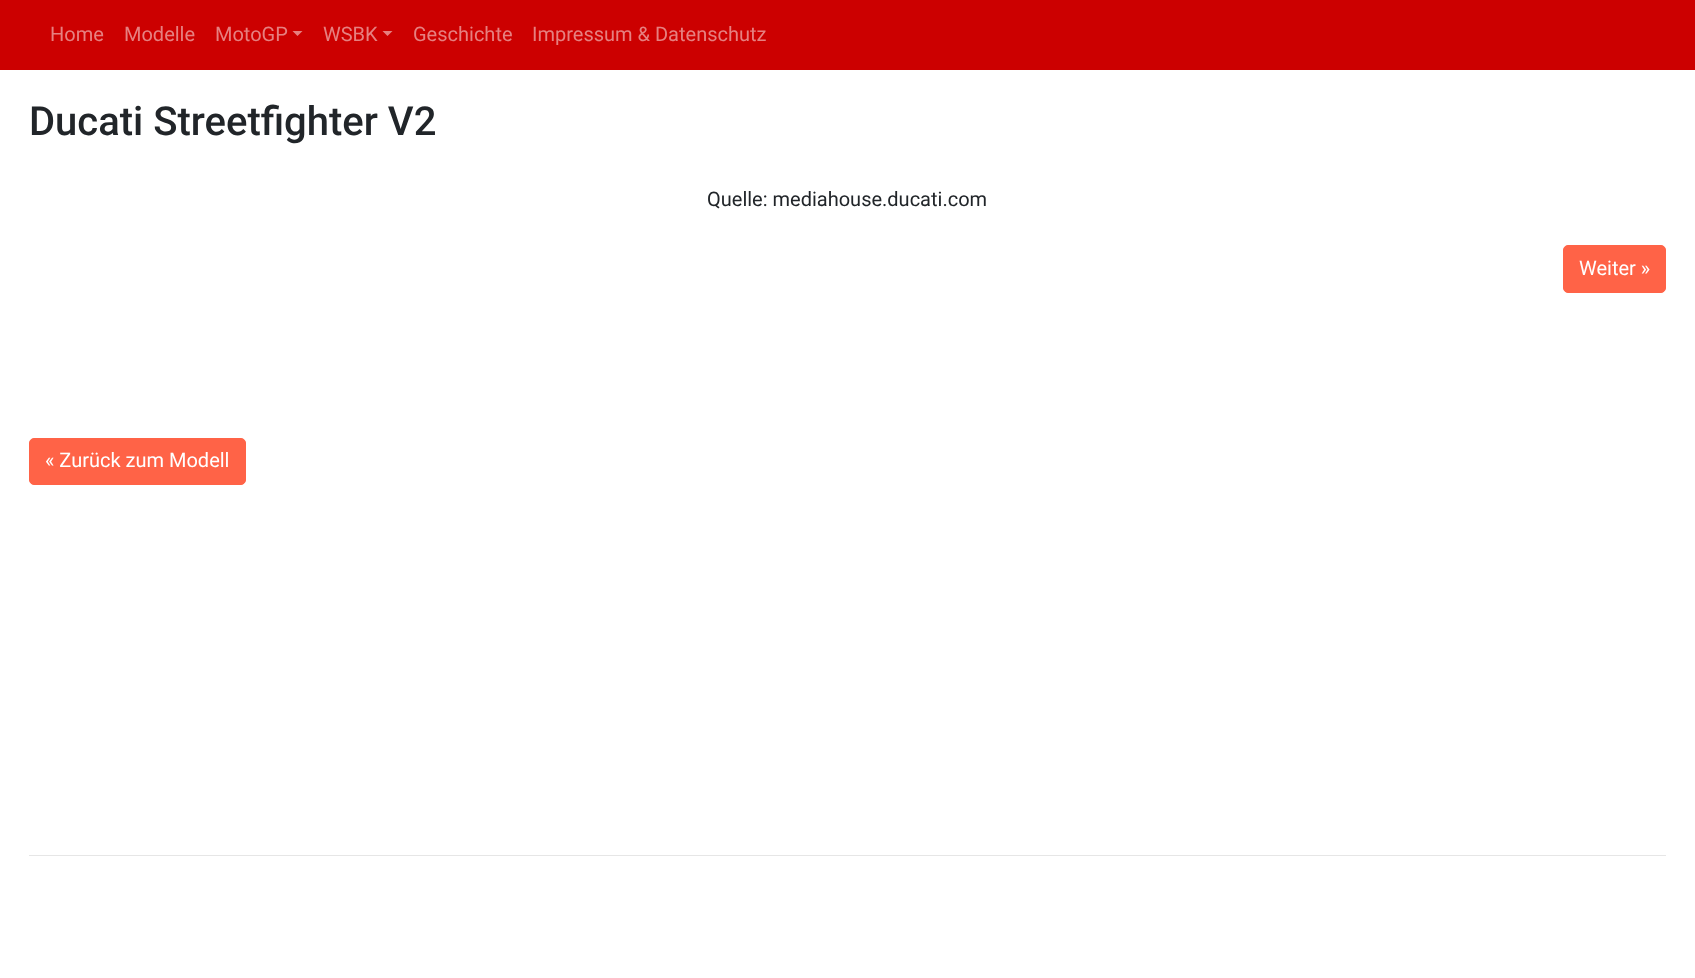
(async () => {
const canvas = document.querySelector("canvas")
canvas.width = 1695
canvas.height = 978
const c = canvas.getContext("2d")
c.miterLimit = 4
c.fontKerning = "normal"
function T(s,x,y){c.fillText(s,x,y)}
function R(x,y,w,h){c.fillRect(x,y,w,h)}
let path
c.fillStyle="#fff"
R(0,0,1695,978)
c.fillStyle="#c00"
R(0,0,1695,70)
c.font="20px Roboto"
c.fillStyle="#e68080"
T("Home",50,41)
T("Modelle",124,41)
T("MotoGP",215,41)
path = new Path2D("M292.5 31h10l-5 5z")
c.fill(path)
T("WSBK",323,41)
path = new Path2D("M382.5 31h10l-5 5z")
c.fill(path)
T("Geschichte",413,41)
T("Impressum & Datenschutz",532,41)
c.font="500 40px Roboto"
c.fillStyle="#212529"
T("Ducati Streetfighter V2",29,135)
c.font="20px Roboto"
T("Quelle: mediahouse.ducati.com",707,206)
c.fillStyle="#ff6347"
c.beginPath()
c.roundRect(1563.5,245.5,102,47,4.5)
c.fill()
c.strokeStyle="#ff6347"
c.stroke()
c.fillStyle="#fff"
T("Weiter »",1579,275)
c.fillStyle="#ff6347"
c.beginPath()
c.roundRect(29.5,438.5,216,46,4.5)
c.fill()
c.stroke()
c.fillStyle="#fff"
T("« Zurück zum Modell",45,467)
c.fillStyle="#e6e6e6"
R(29,855,1637,1)
})()
